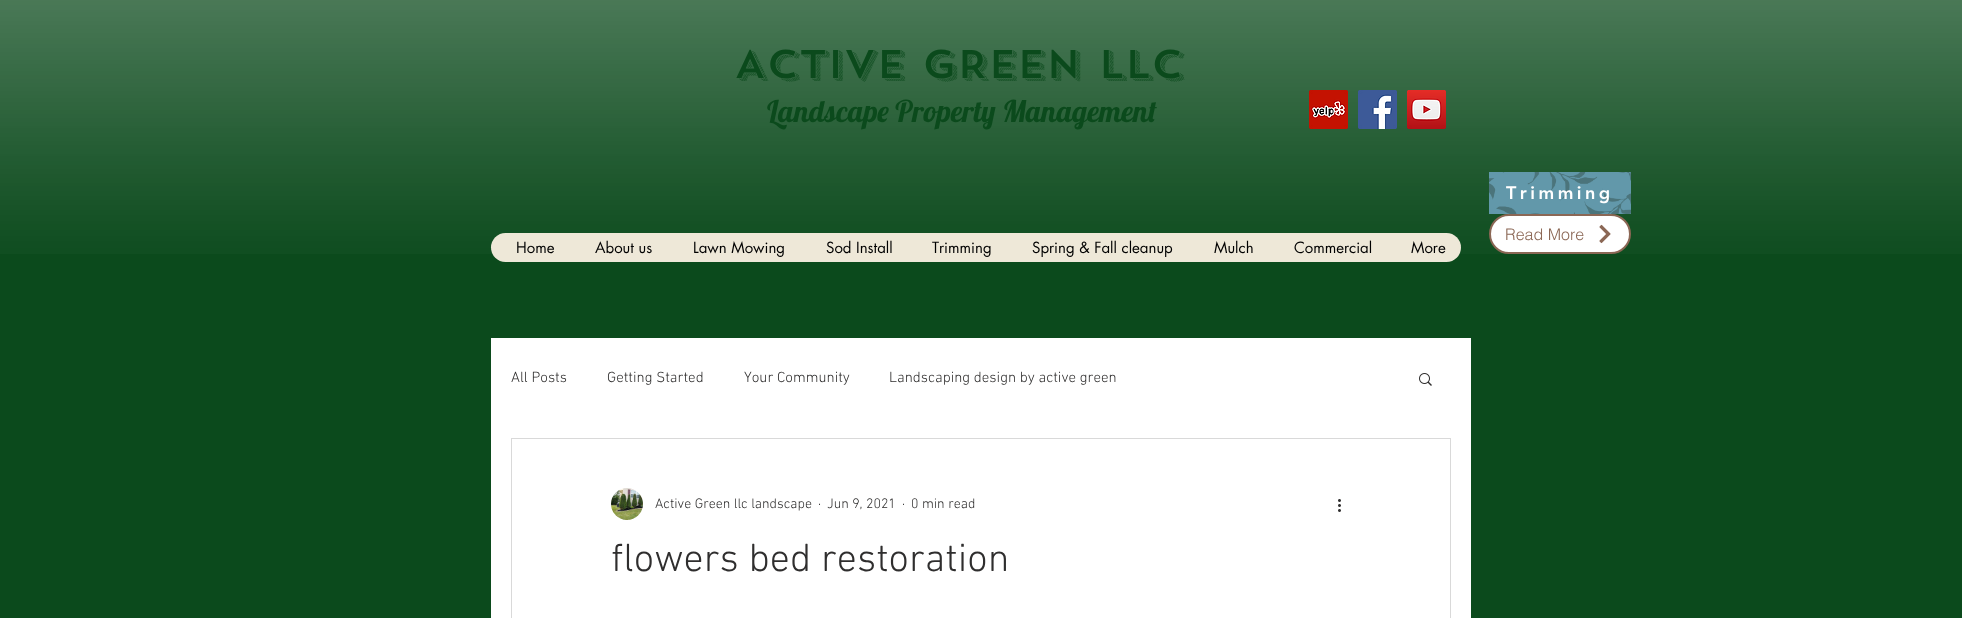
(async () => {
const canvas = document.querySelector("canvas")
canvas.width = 1962
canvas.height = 618
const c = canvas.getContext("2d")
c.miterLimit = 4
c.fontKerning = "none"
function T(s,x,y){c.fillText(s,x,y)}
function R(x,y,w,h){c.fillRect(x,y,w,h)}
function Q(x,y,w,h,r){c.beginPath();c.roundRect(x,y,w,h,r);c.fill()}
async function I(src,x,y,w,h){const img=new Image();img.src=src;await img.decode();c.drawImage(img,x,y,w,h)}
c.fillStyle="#0b4a1c"
R(0,0,1962,618)
await I("1.png",0,0,1962,254)
c.font="500 40px 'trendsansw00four'"
T("ACTIVE GREEN LLC",734,78)
c.font="30px Lobster"
T("Landscape Property Management",767,122)
await I("2.png",1309,90,39,39)
await I("3.png",1358,90,39,39)
await I("4.png",1407,90,39,39)
c.fillStyle="#6298aa"
R(1489,172,142,42)
await I("5.png",1489,172,142,42)
c.letterSpacing="3.5px"
c.font="900 18px 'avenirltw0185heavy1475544'"
c.fillStyle="#fff"
T("Trimming",1506,199)
c.beginPath()
c.roundRect(1490,215,140,38,19)
c.fill()
c.strokeStyle="#8b6755"
c.lineWidth=2
c.stroke()
c.letterSpacing="0px"
c.font="300 16px helvetica"
c.fillStyle="#8b6755"
T("Read More",1505,240)
await I("6.png",1599,224,12,20)
c.fillStyle="#eee8d8"
Q(491,233,970,29,14.5)
c.font="15px futura"
c.fillStyle="#000"
T("Home",516,253)
T("About us",595,253)
T("Lawn Mowing",693,253)
T("Sod Install",826,253)
T("Trimming",932,253)
T("Spring & Fall cleanup",1032,253)
T("Mulch",1214,253)
T("Commercial",1294,253)
T("More",1411,253)
c.fillStyle="#fff"
R(491,338,980,280)
c.font="300 15px 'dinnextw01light'"
c.fillStyle="#2f2e2e"
T("All Posts",511,382)
T("Getting Started",607,382)
T("Your Community",744,382)
T("Landscaping design by active green",889,382)
await I("7.png",1419,373,13,13)
c.strokeStyle="#d9d9d9"
c.lineWidth=1
c.strokeRect(511.5,438.5,939,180)
await I("8.png",611,488,32,32)
c.font="300 14px 'dinnextw01light'"
T("Active Green llc landscape",655,508)
T("·",818,508)
T("Jun 9, 2021",827,508)
T("·",902,508)
T("0 min read",911,508)
await I("9.png",1338,499,3,13)
c.font="300 40px 'dinnextw01light'"
T("flowers bed restoration",611,571)
})()
